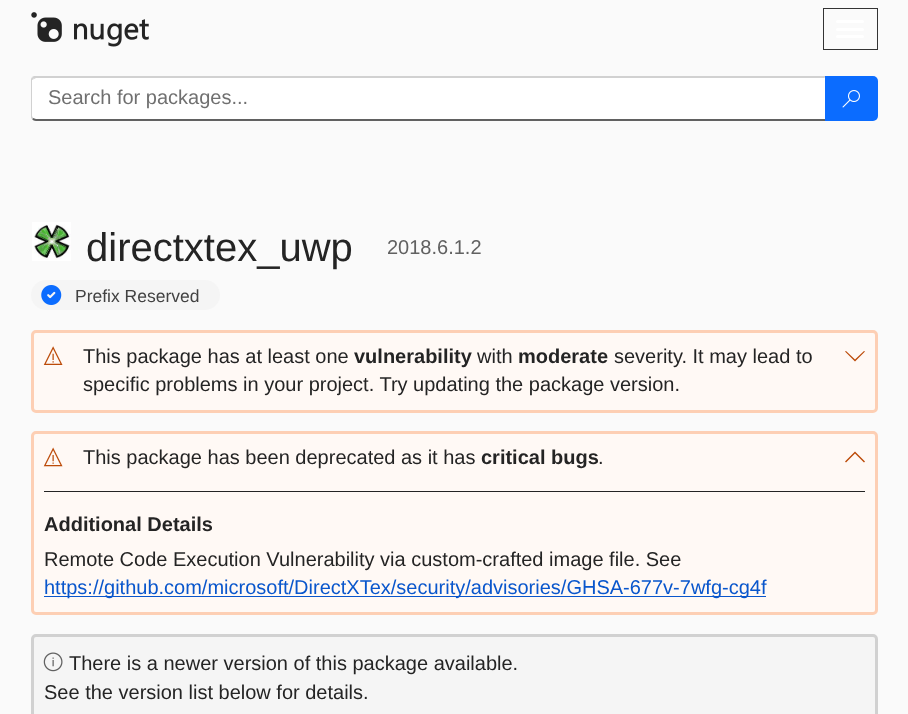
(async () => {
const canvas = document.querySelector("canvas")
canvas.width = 908
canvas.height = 714
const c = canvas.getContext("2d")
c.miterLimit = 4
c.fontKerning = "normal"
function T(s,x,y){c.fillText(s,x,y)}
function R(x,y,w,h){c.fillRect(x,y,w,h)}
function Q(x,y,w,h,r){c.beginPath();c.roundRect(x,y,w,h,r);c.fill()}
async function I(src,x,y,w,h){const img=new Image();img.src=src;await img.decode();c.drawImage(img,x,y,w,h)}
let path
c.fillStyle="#fafafa"
R(0,0,908,714)
await I("1.png",31,12,118,35)
c.strokeStyle="#333"
c.strokeRect(823.5,8.5,54,41)
c.fillStyle="#fff"
Q(836,20,28,3,1.5)
Q(836,28,28,3,1.5)
Q(836,35,28,3,1.5)
path = new Path2D("M36 78h789v41h-789c-2 0-4-1-4-3v-35c0-2 2-3 4-3z")
c.fill(path)
c.fillStyle="#d1d1d1"
path = new Path2D("M36 78l-2 1l-2-2l2-1h792l-2 2z")
c.fill(path)
path = new Path2D("M826 76v45l-1-2v-41h-1z")
c.fill(path)
c.fillStyle="#616161"
path = new Path2D("M826 121h-790c-2 0-3-1-4-2l1-1l3 1h789z")
c.fill(path)
c.fillStyle="#d1d1d1"
path = new Path2D("M31 79l1-2l2 2l-2 1v36l1 2l-1 1l-1-1z")
c.fill(path)
c.font="20px Liberation Sans"
c.fillStyle="#707070"
T("Search for packages...",48,104)
c.fillStyle="#0b6cff"
c.beginPath()
c.roundRect(825,76,53,45,[0,5,5,0])
c.fill()
await I("2.png",842,90,18,18)
await I("3.png",32,222,39,39)
c.font="40px Liberation Sans"
c.fillStyle="#242424"
T("directxtex_uwp",86,261)
c.font="20px Liberation Sans"
c.fillStyle="#616161"
T("2018.6.1.2",387,254)
c.fillStyle="#f5f5f5"
Q(31,280,189,30,15)
await I("4.png",41,285,21,20)
c.font="17.5px Liberation Sans"
c.fillStyle="#424242"
T("Prefix Reserved",75,302)
c.fillStyle="#fff9f5"
c.beginPath()
c.roundRect(32.5,331.5,844,80,3.5)
c.fill()
c.strokeStyle="#fdcfb4"
c.lineWidth=3
c.stroke()
await I("5.png",43,346,20,19)
c.font="20px Liberation Sans"
c.fillStyle="#242424"
T("This package has at least one",83,363)
c.font="bold 20px Liberation Sans"
T("vulnerability",354,363)
c.font="20px Liberation Sans"
T("with",477,363)
c.font="bold 20px Liberation Sans"
T("moderate",518,363)
c.font="20px Liberation Sans"
T("severity. It may lead to",614,363)
T("specific problems in your project. Try updating the package version.",83,391)
c.fillStyle="#bc4b09"
path = new Path2D("M864 351l1 .5l-10 10l-10-10l1-.5l9 8.5z")
c.fill(path)
c.fillStyle="#fff9f5"
c.beginPath()
c.roundRect(32.5,432.5,844,181,3.5)
c.fill()
c.stroke()
await I("6.png",43,447,20,20)
c.fillStyle="#242424"
T("This package has been deprecated as it has",83,464)
c.font="bold 20px Liberation Sans"
T("critical bugs",481,464)
c.font="20px Liberation Sans"
T(".",598,464)
c.fillStyle="#bc4b09"
path = new Path2D("M864 462.5l-9-9l-9 9l-1-1l10-10l10 10z")
c.fill(path)
c.fillStyle="#242424"
R(44,491,821,1)
c.font="bold 20px Liberation Sans"
T("Additional Details",44,531)
c.font="20px Liberation Sans"
T("Remote Code Execution Vulnerability via custom-crafted image file. See",44,566)
c.fillStyle="#0956cc"
R(44,596,722,1)
T("https://github.com/microsoft/DirectXTex/security/advisories/GHSA-677v-7wfg-cg4f",44,594)
c.fillStyle="#f5f5f5"
c.beginPath()
c.roundRect(32.5,635.5,844,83,3.5)
c.fill()
c.strokeStyle="#d1d1d1"
c.stroke()
await I("7.png",43,652,20,20)
c.fillStyle="#242424"
T("There is a newer version of this package available.",69,670)
T("See the version list below for details.",44,699)
})()
